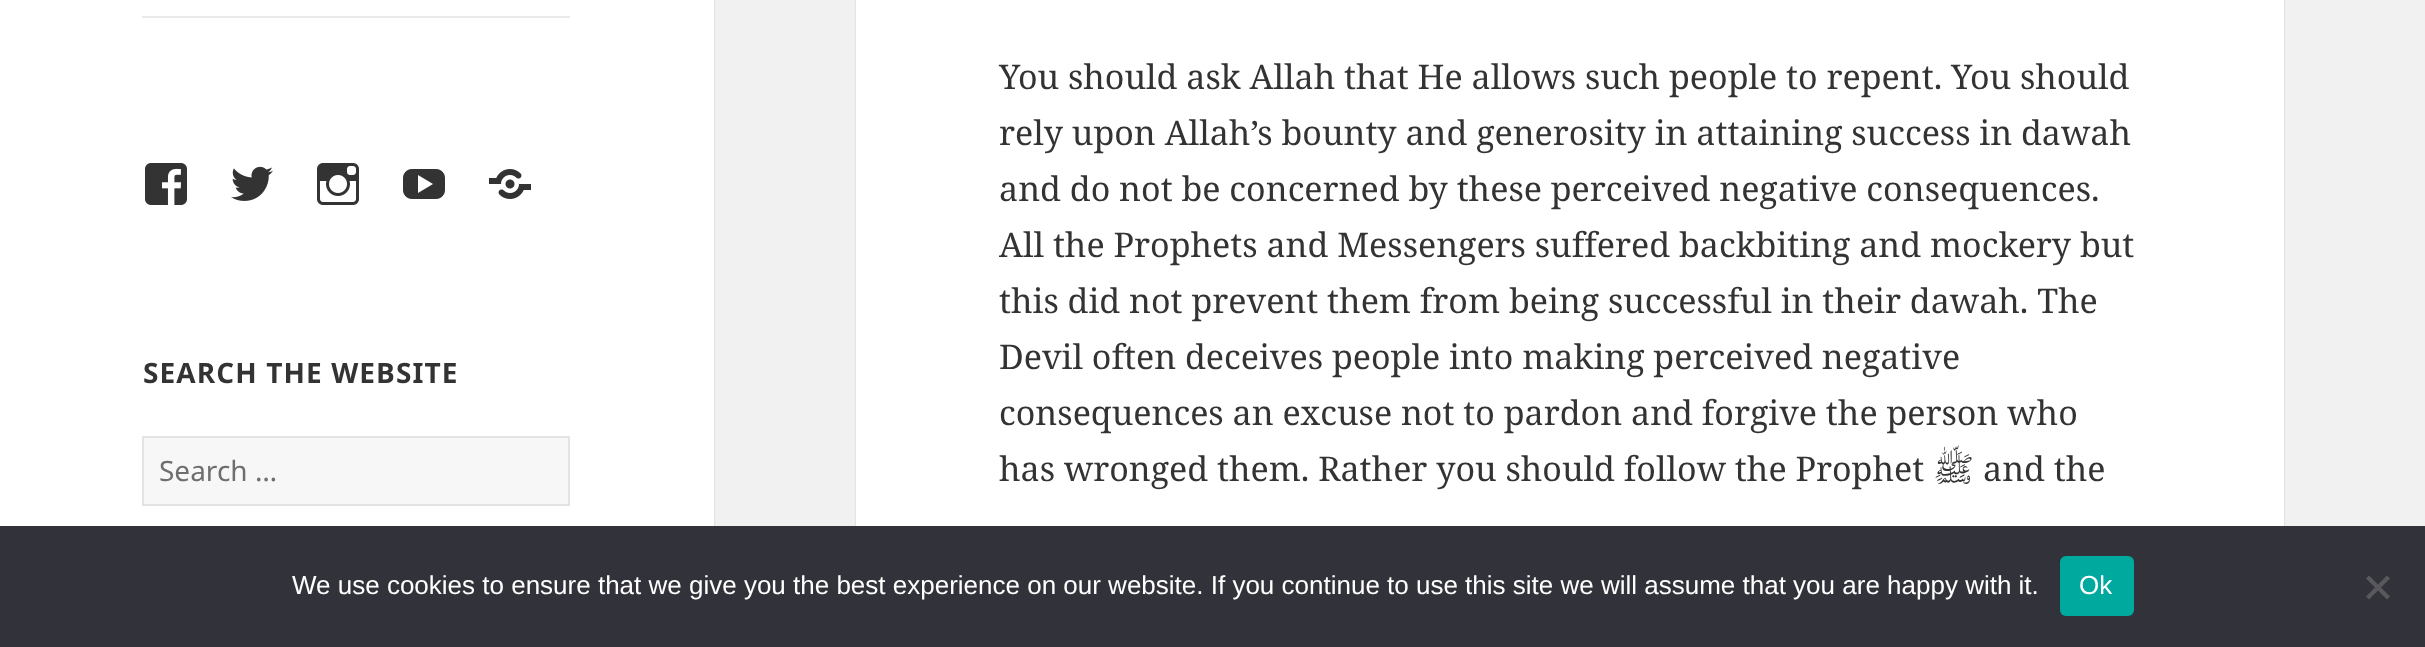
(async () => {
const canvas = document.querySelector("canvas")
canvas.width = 2425
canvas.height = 647
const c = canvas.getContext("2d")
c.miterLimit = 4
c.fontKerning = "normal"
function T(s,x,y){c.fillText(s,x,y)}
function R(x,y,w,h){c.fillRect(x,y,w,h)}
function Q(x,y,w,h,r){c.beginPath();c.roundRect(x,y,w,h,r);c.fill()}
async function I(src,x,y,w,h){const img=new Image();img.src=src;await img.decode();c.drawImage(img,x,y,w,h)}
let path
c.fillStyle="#f1f1f1"
R(0,0,2425,647)
c.fillStyle="#00000026"
c.filter="blur(1px)"
c.beginPath()
c.rect(0,0,714,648)
c.fill()
c.filter="none"
c.fillStyle="#fff"
R(0,0,714,526)
c.fillStyle="#ebebeb"
R(142,16,428,2)
await I("1.png",145,163,42,42)
await I("2.png",231,166,42,35)
await I("3.png",317,163,42,42)
await I("4.png",403,169,42,30)
await I("5.png",489,169,42,30)
c.letterSpacing="1.1px"
c.font="bold 28px Noto Sans"
c.fillStyle="#333"
T("SEARCH THE WEBSITE",143,383)
c.fillStyle="#f7f7f7"
c.beginPath()
c.rect(143,437,426,68)
c.fill()
c.strokeStyle="#e3e3e3"
c.lineWidth=2
c.stroke()
c.letterSpacing="0px"
c.font="28px Noto Sans"
c.fillStyle="#6e6e6e"
T("Search …",159,481)
c.fillStyle="#00000026"
c.filter="blur(1px)"
c.beginPath()
c.rect(856,-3,1428,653)
c.fill()
c.filter="none"
c.fillStyle="#fff"
R(856,0,1428,526)
c.font="34px Noto Serif"
c.fillStyle="#333"
T("You should ask Allah that He allows such people to repent. You should",999,89)
T("rely upon Allah’s bounty and generosity in attaining success in dawah",999,145)
T("and do not be concerned by these perceived negative consequences.",999,201)
T("All the Prophets and Messengers suffered backbiting and mockery but",999,257)
T("this did not prevent them from being successful in their dawah. The",999,313)
T("Devil often deceives people into making perceived negative",999,369)
T("consequences an excuse not to pardon and forgive the person who",999,425)
T("has wronged them. Rather you should follow the Prophet",999,481)
c.direction="rtl"
c.font="34px Lateef"
T("ﷺ",1974,481)
c.direction="ltr"
c.font="34px Noto Serif"
T("and the",1983,481)
c.fillStyle="#32323a"
R(0,526,2425,121)
c.font="26px Liberation Sans"
c.fillStyle="#fff"
T("We use cookies to ensure that we give you the best experience on our website. If you continue to use this site we will assume that you are happy with it.",292,594)
c.fillStyle="#00a99d"
Q(2060,556,74,60,6)
c.fillStyle="#fff"
T("Ok",2079,594)
c.fillStyle="#59595d"
path = new Path2D("M2387 575.5l3 3l-21 21l-3-3z")
c.fill(path)
path = new Path2D("M2366 578.5l3-3l21 21l-3 3z")
c.fill(path)
})()
